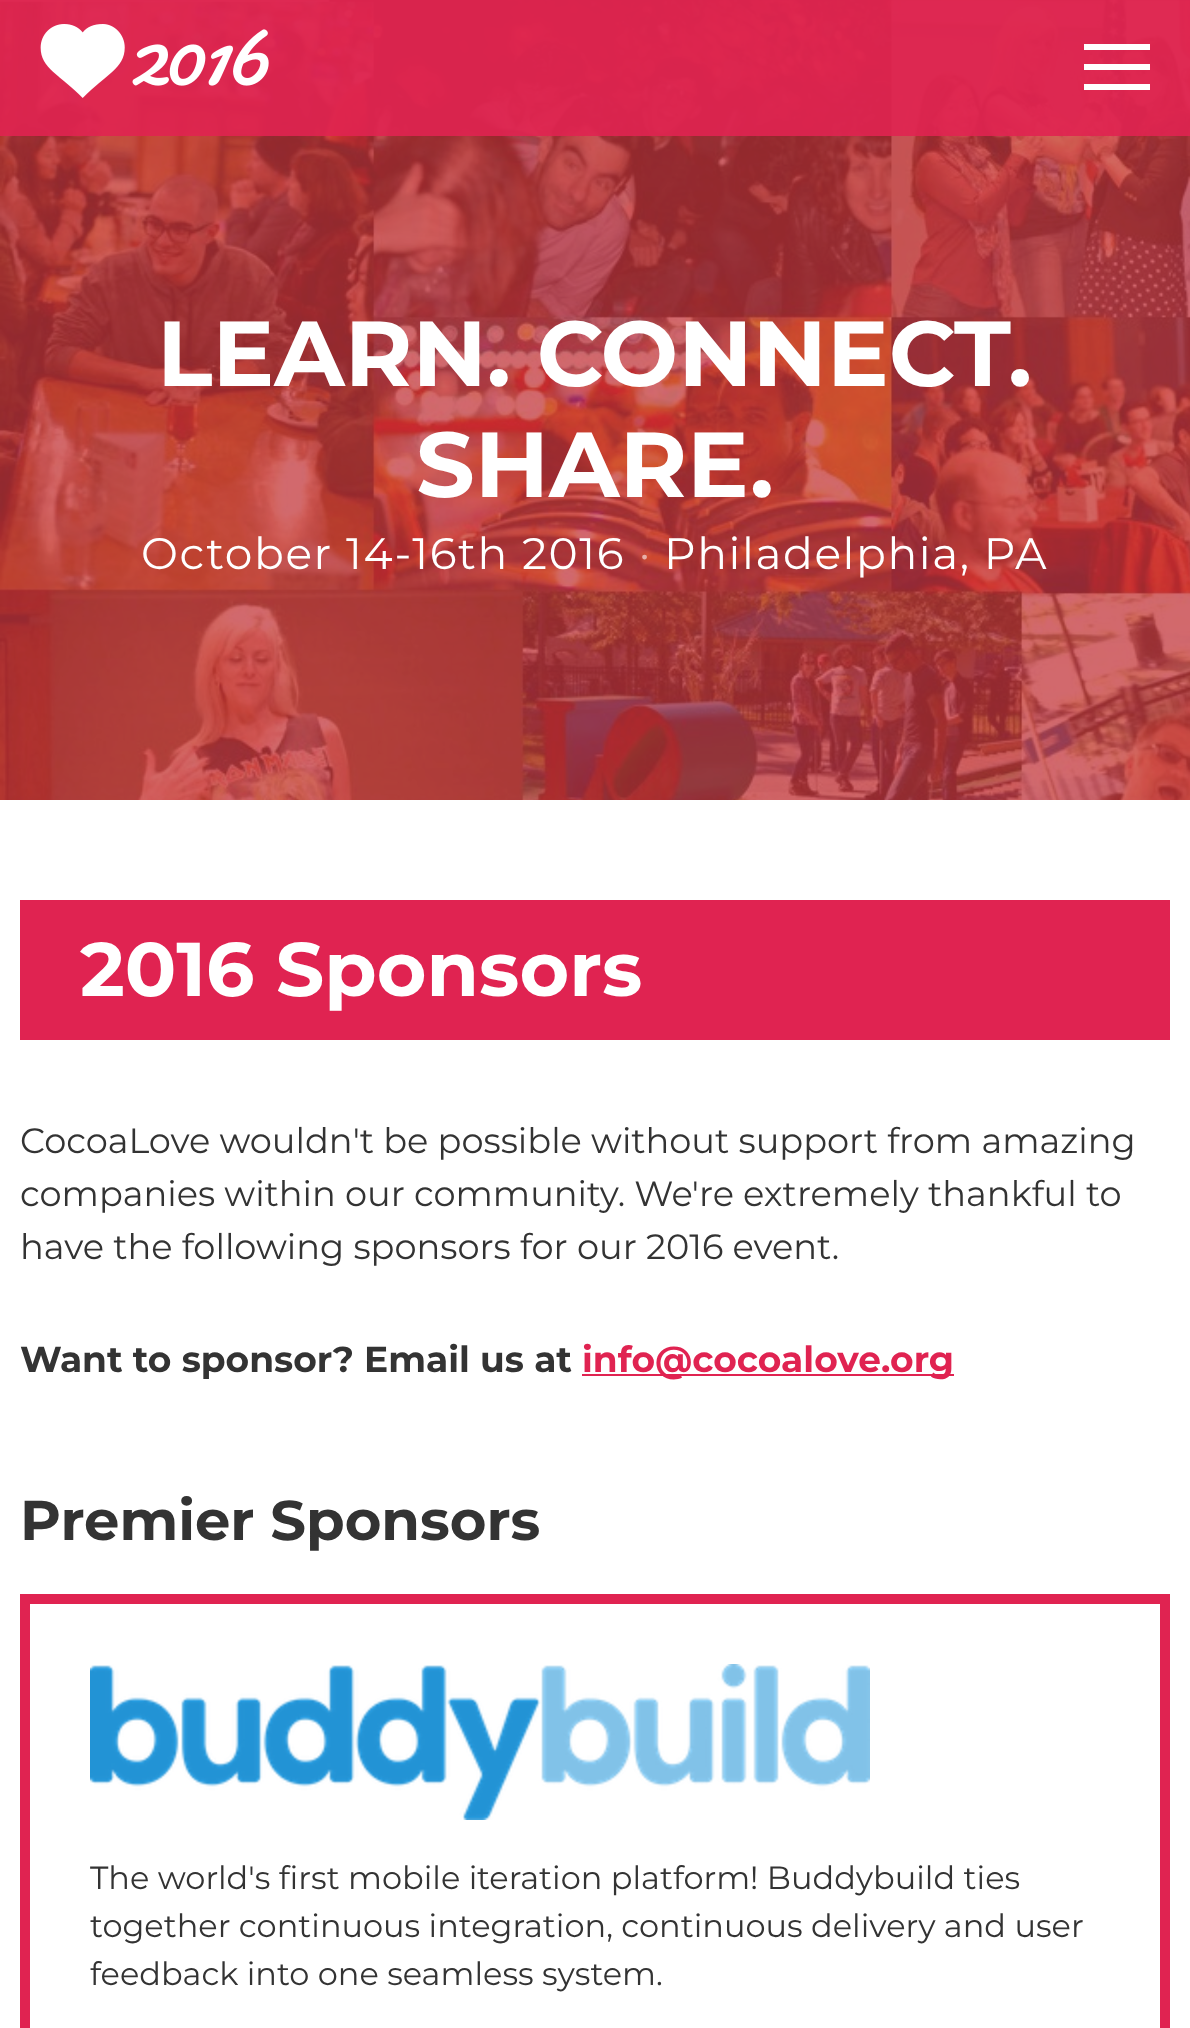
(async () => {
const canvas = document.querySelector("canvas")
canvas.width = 1190
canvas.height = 2028
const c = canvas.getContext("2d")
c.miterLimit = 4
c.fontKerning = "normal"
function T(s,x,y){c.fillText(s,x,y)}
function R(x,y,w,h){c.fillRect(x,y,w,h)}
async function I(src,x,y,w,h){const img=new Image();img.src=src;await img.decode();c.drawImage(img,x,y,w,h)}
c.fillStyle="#fff"
R(0,0,1190,2028)
await I("2.png",0,0,1190,800)
c.fillStyle="#e02351e6"
R(0,0,1190,136)
await I("1.png",40,24,229,74)
c.fillStyle="#fff"
R(1084,44,66,6)
R(1084,64,66,6)
R(1084,84,66,6)
c.font="bold 92px Montserrat"
T("LEARN. CONNECT.",157,386)
T("SHARE.",416,497)
c.letterSpacing="1.6px"
c.font="44px Montserrat"
T("October 14-16th 2016",141,569)
c.fillStyle="#e7b0a8"
T("·",639,569)
c.fillStyle="#fff"
T("Philadelphia, PA",664,569)
c.fillStyle="#e02351"
R(20,900,1150,140)
c.letterSpacing="0px"
c.font="bold 76px Montserrat"
c.fillStyle="#fff"
T("2016 Sponsors",80,996)
c.font="35.2px Montserrat"
c.fillStyle="#333"
T("CocoaLove wouldn't be possible without support from amazing",20,1153)
T("companies within our community. We're extremely thankful to",20,1206)
T("have the following sponsors for our 2016 event.",20,1259)
c.font="bold 36px Montserrat"
T("Want to sponsor? Email us at",20,1372)
c.fillStyle="#e02351"
R(582,1374,372,2)
T("info@cocoalove.org",582,1372)
c.font="bold 56px Montserrat"
c.fillStyle="#333"
T("Premier Sponsors",20,1540)
c.strokeStyle="#e02351"
c.lineWidth=10
c.strokeRect(25,1599,1140,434)
await I("3.png",90,1664,780,156)
c.font="32px Montserrat"
T("The world's first mobile iteration platform! Buddybuild ties",90,1889)
T("together continuous integration, continuous delivery and user",90,1937)
T("feedback into one seamless system.",90,1985)
})()
